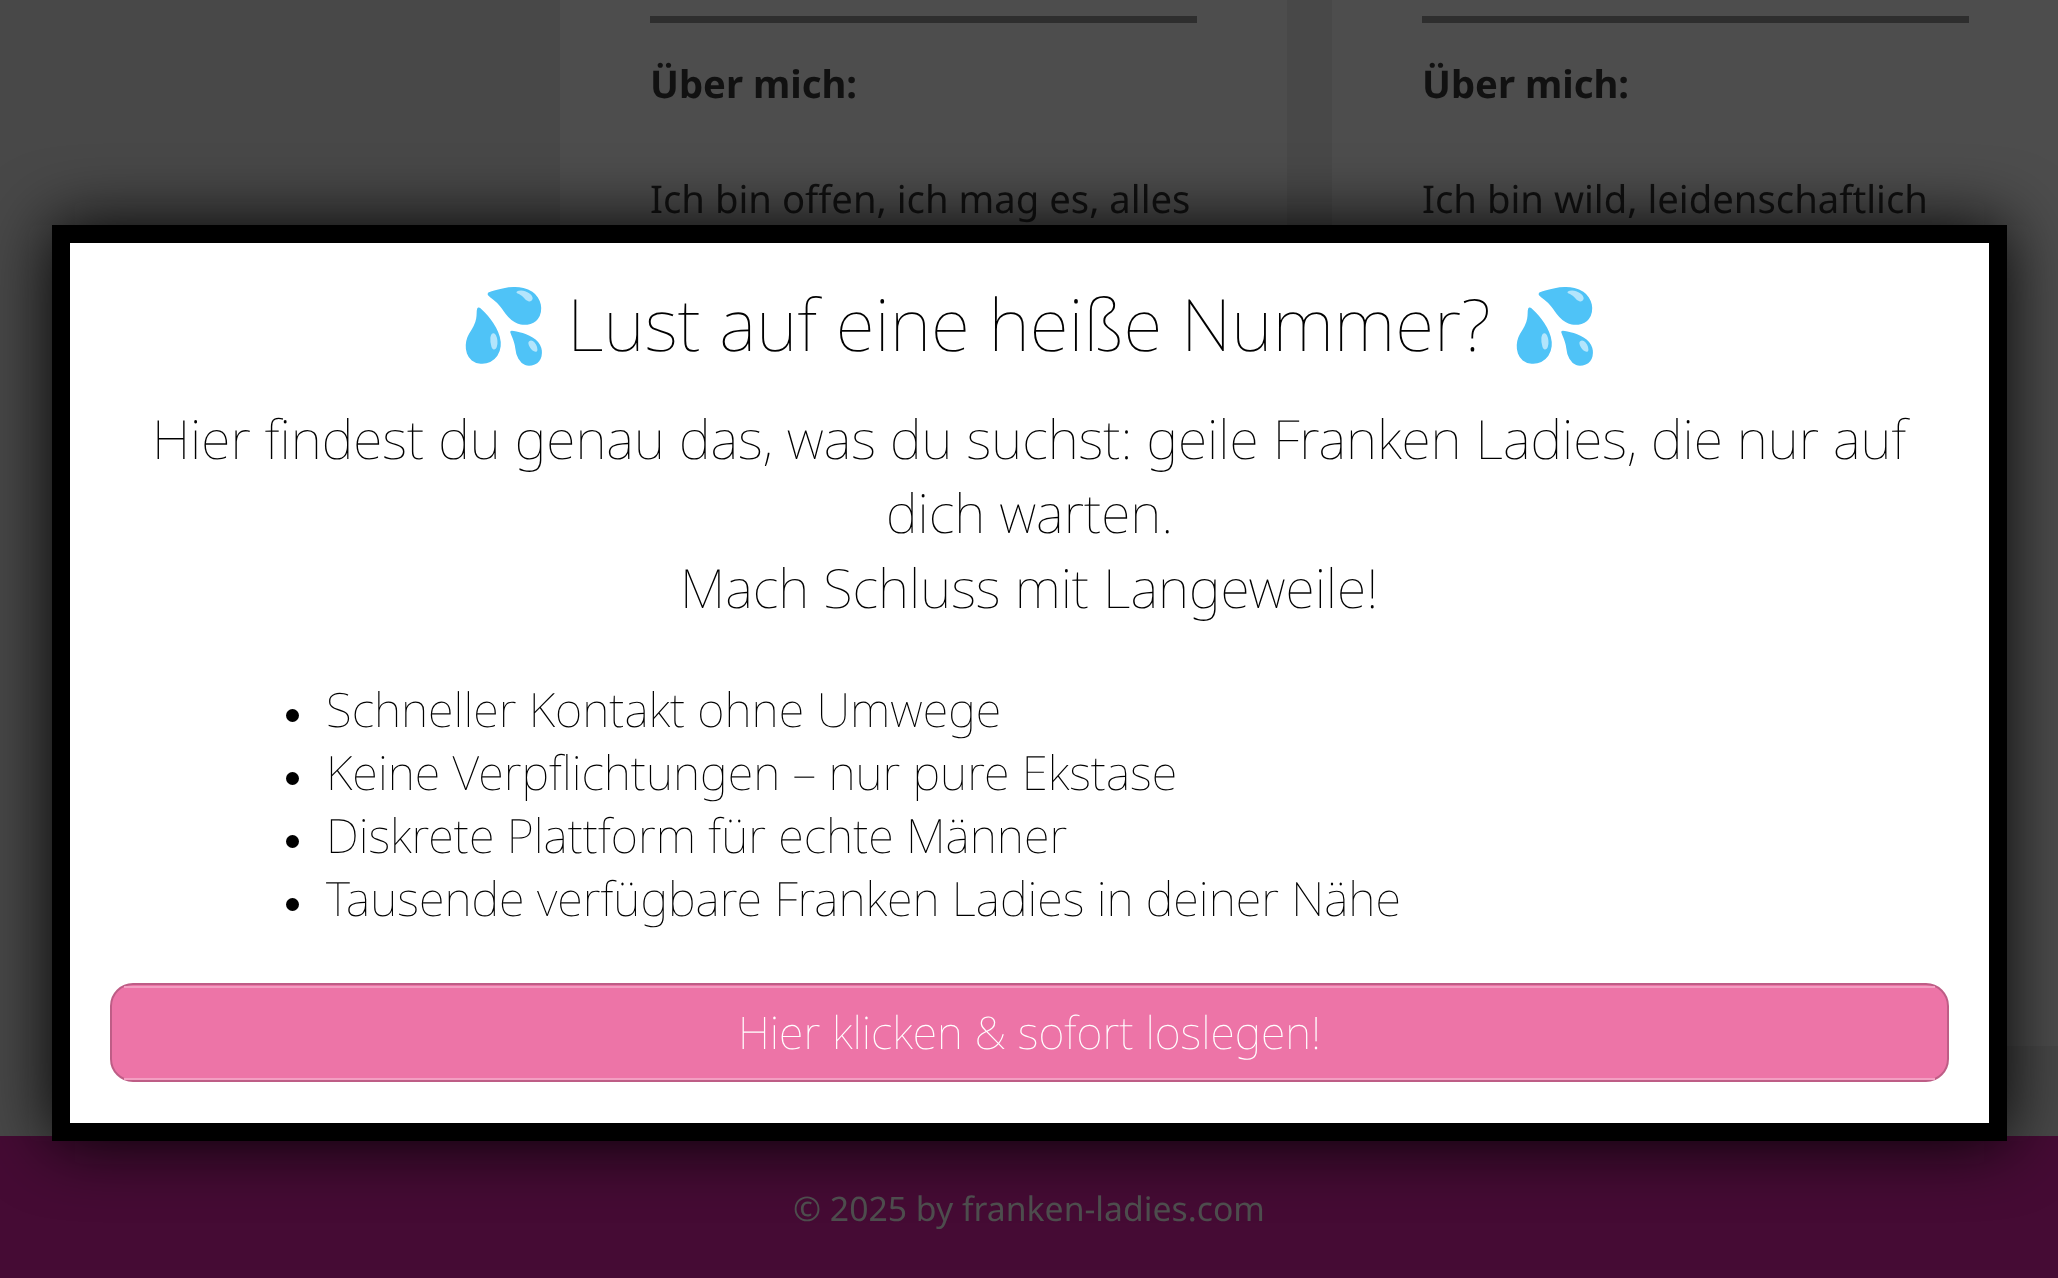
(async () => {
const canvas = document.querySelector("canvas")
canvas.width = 2058
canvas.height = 1278
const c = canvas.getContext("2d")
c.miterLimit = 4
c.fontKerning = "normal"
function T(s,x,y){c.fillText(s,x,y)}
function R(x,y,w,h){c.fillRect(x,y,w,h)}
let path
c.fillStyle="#484848"
R(0,0,2058,1278)
c.fillStyle="#4d4d4d"
R(560,0,727,225)
c.fillStyle="#2e2e2e"
R(650,16,547,7)
c.font="bold 38.25px Noto Sans"
c.fillStyle="#111"
T("Über mich:",650,98)
c.font="38.25px Noto Sans"
T("Ich bin offen, ich mag es, alles",650,213)
c.fillStyle="#4d4d4d"
R(1332,0,726,1046)
c.fillStyle="#2e2e2e"
R(1422,16,547,7)
c.font="bold 38.25px Noto Sans"
c.fillStyle="#111"
T("Über mich:",1422,98)
c.font="38.25px Noto Sans"
T("Ich bin wild, leidenschaftlich",1422,213)
c.fillStyle="#450b34"
R(0,1136,2058,142)
c.fillStyle="#020202"
c.filter="blur(34px)"
c.beginPath()
c.roundRect(52,225,1955,916,7)
c.fill()
c.filter="none"
c.fillStyle="#fff"
R(70,243,1919,880)
path = new Path2D("M61 234h1937v898h-1937z")
c.strokeStyle="#000"
c.lineWidth=18
c.stroke(path)
c.font="72px Noto Color Emoji"
c.fillStyle="#000"
T("💦",459,351)
c.font="100 72px Noto Sans"
T("Lust auf eine heiße Nummer?",567,351)
c.font="72px Noto Color Emoji"
T("💦",1510,351)
c.font="100 54px Noto Sans"
T("Hier findest du genau das, was du suchst: geile Franken Ladies, die nur auf",152,459)
T("dich warten.",886,533)
T("Mach Schluss mit Langeweile!",680,608)
c.beginPath()
c.arc(292.5,715.5,6.5,0,7)
c.fill()
c.font="100 47.25px Noto Sans"
T("Schneller Kontakt ohne Umwege",326,727)
c.beginPath()
c.arc(292.5,778.5,6.5,0,7)
c.fill()
T("Keine Verpflichtungen – nur pure Ekstase",326,790)
c.beginPath()
c.arc(292.5,841.5,6.5,0,7)
c.fill()
T("Diskrete Plattform für echte Männer",326,853)
c.beginPath()
c.arc(292.5,904.5,6.5,0,7)
c.fill()
T("Tausende verfügbare Franken Ladies in deiner Nähe",326,916)
c.fillStyle="#ed74a7"
c.beginPath()
c.roundRect(111,984,1837,97,22)
c.fill()
c.strokeStyle="#be5d86"
c.lineWidth=2
c.stroke()
c.fillStyle="#f39ec2"
R(124,986,1811,2)
R(124,1078,1811,2)
c.font="100 45px Noto Sans"
c.fillStyle="#fff"
T("Hier klicken & sofort loslegen!",738,1049)
c.font="33.75px Noto Sans"
c.fillStyle="#4d4d4d"
T("© 2025 by franken-ladies.com",793,1221)
})()
